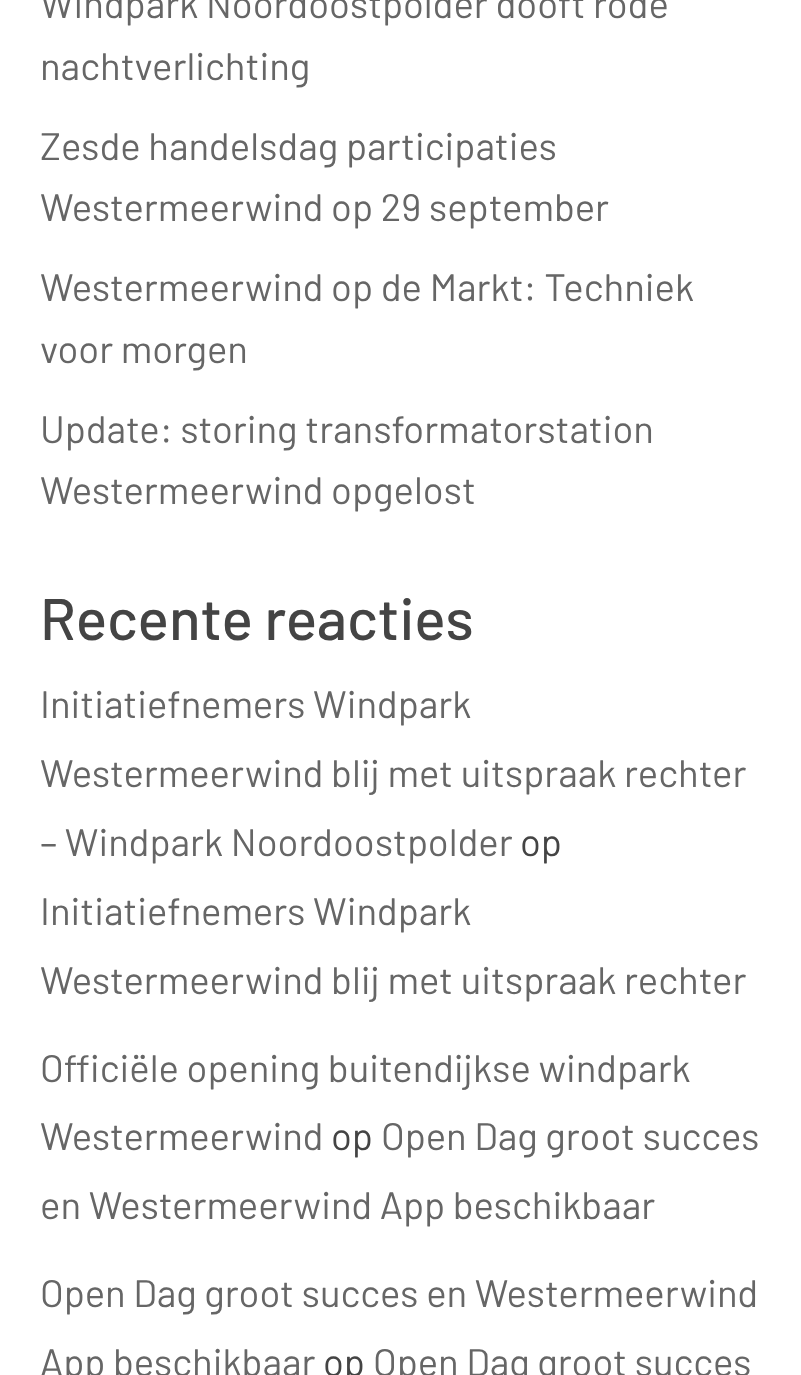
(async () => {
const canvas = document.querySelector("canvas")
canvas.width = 801
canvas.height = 1375
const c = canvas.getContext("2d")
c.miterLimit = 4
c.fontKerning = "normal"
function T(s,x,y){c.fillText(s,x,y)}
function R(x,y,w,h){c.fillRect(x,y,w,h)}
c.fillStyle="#fff"
R(0,0,801,1375)
c.font="38.25px Barlow"
c.fillStyle="#666"
T("Windpark Noordoostpolder dooft rode",40,18)
T("nachtverlichting",40,80)
T("Zesde handelsdag participaties",40,160)
T("Westermeerwind op 29 september",40,221)
T("Westermeerwind op de Markt: Techniek",40,301)
T("voor morgen",40,363)
T("Update: storing transformatorstation",40,443)
T("Westermeerwind opgelost",40,504)
c.font="500 58.5px Barlow"
c.fillStyle="#444"
T("Recente reacties",40,640)
c.font="38.25px Barlow"
c.fillStyle="#666"
T("Initiatiefnemers Windpark",40,718)
T("Westermeerwind blij met uitspraak rechter",40,787)
T("– Windpark Noordoostpolder",40,856)
c.fillStyle="#444"
T("op",520,856)
c.fillStyle="#666"
T("Initiatiefnemers Windpark",40,925)
T("Westermeerwind blij met uitspraak rechter",40,994)
T("Officiële opening buitendijkse windpark",40,1082)
T("Westermeerwind",40,1150)
c.fillStyle="#444"
T("op",331,1150)
c.fillStyle="#666"
T("Open Dag groot succes",381,1150)
T("en Westermeerwind App beschikbaar",40,1219)
T("Open Dag groot succes en Westermeerwind",40,1307)
T("App beschikbaar",40,1376)
c.fillStyle="#444"
T("op",323,1376)
c.fillStyle="#666"
T("Open Dag groot succes",373,1376)
})()
